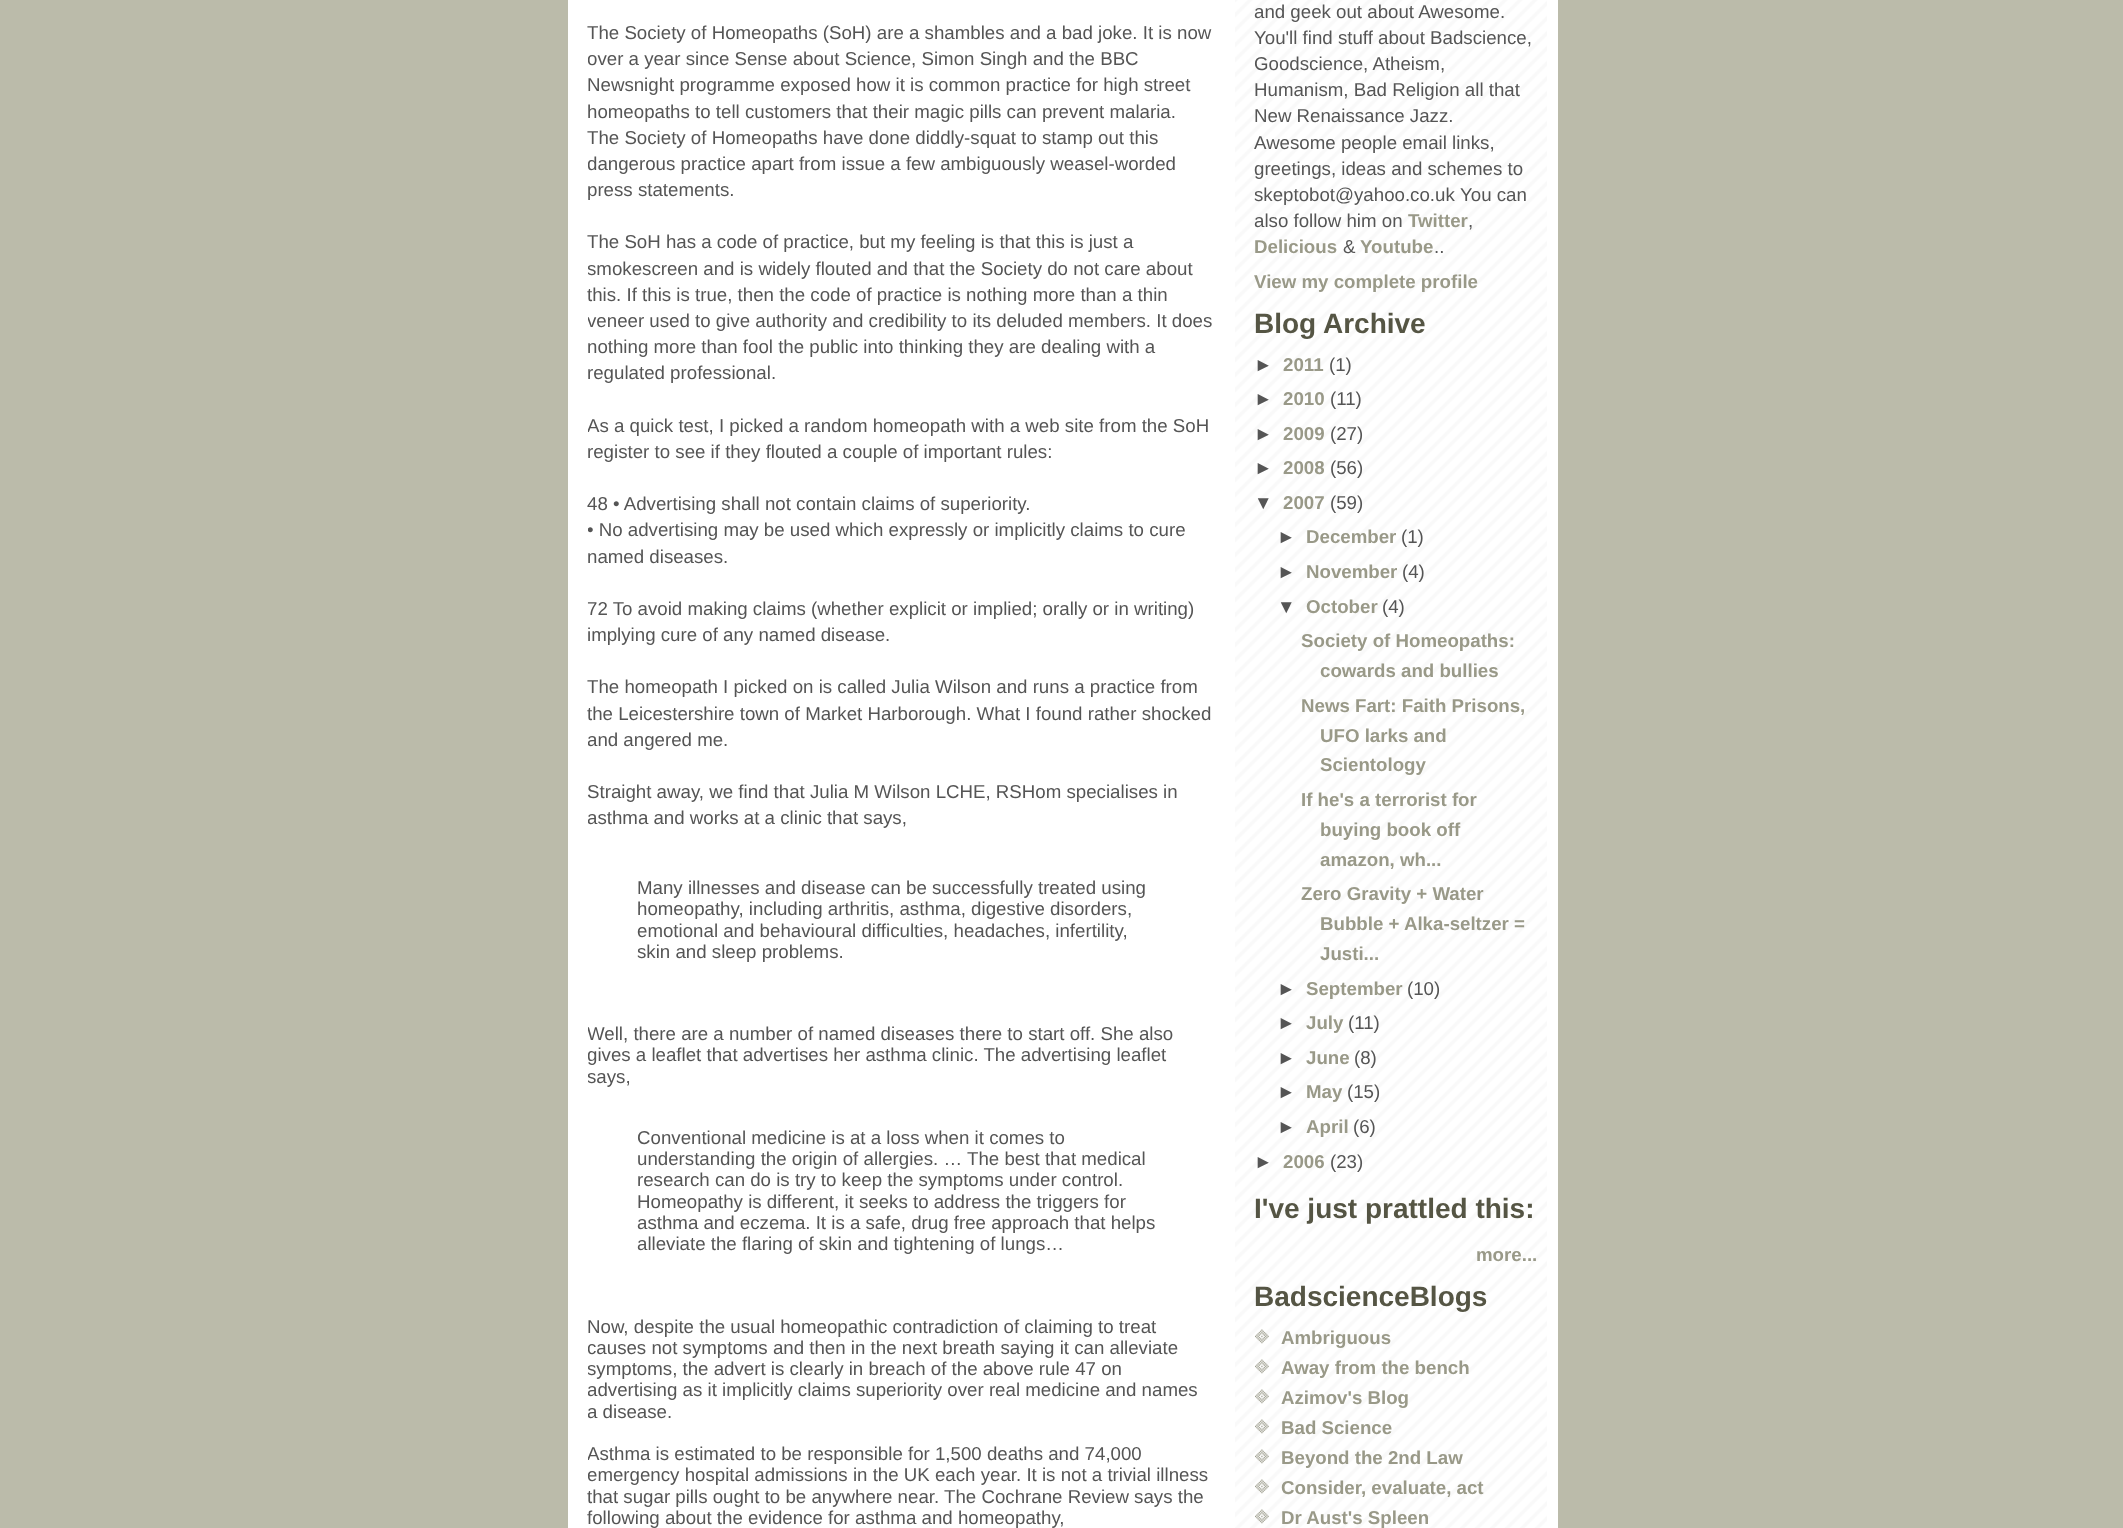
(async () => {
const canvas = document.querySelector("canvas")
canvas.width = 2123
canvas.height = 1528
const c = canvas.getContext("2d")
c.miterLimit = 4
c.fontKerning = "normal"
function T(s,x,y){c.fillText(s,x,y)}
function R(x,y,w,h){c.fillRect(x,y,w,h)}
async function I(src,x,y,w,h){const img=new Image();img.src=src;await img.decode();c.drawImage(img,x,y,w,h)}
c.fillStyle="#bba"
R(0,0,2123,1528)
c.fillStyle="#fff"
R(568,0,990,1528)
await I("1.png",1235,0,312,1528)
c.font="18.7px Liberation Sans"
c.fillStyle="#555"
T("The Society of Homeopaths (SoH) are a shambles and a bad joke. It is now",587,39)
c.save()
c.beginPath()
c.rect(588,0,625,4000)
c.clip()
T("over a year since Sense about Science, Simon Singh and the BBC",587,65)
c.restore()
T("Newsnight programme exposed how it is common practice for high street",587,91)
T("homeopaths to tell customers that their magic pills can prevent malaria.",587,118)
T("The Society of Homeopaths have done diddly-squat to stamp out this",587,144)
c.save()
c.beginPath()
c.rect(588,0,625,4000)
c.clip()
T("dangerous practice apart from issue a few ambiguously weasel-worded",587,170)
c.restore()
T("press statements.",587,196)
T("The SoH has a code of practice, but my feeling is that this is just a",587,248)
c.save()
c.beginPath()
c.rect(588,0,625,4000)
c.clip()
T("smokescreen and is widely flouted and that the Society do not care about",587,275)
c.restore()
T("this. If this is true, then the code of practice is nothing more than a thin",587,301)
c.save()
c.beginPath()
c.rect(588,0,625,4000)
c.clip()
T("veneer used to give authority and credibility to its deluded members. It does",587,327)
c.restore()
T("nothing more than fool the public into thinking they are dealing with a",587,353)
T("regulated professional.",587,379)
c.save()
c.beginPath()
c.rect(588,0,625,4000)
c.clip()
T("As a quick test, I picked a random homeopath with a web site from the SoH",587,432)
c.restore()
T("register to see if they flouted a couple of important rules:",587,458)
T("48 • Advertising shall not contain claims of superiority.",587,510)
c.save()
c.beginPath()
c.rect(588,0,625,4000)
c.clip()
T("• No advertising may be used which expressly or implicitly claims to cure",587,536)
c.restore()
T("named diseases.",587,563)
T("72 To avoid making claims (whether explicit or implied; orally or in writing)",587,615)
T("implying cure of any named disease.",587,641)
T("The homeopath I picked on is called Julia Wilson and runs a practice from",587,693)
T("the Leicestershire town of Market Harborough. What I found rather shocked",587,720)
c.save()
c.beginPath()
c.rect(588,0,625,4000)
c.clip()
T("and angered me.",587,746)
c.restore()
T("Straight away, we find that Julia M Wilson LCHE, RSHom specialises in",587,798)
c.save()
c.beginPath()
c.rect(588,0,625,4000)
c.clip()
T("asthma and works at a clinic that says,",587,824)
c.restore()
T("Many illnesses and disease can be successfully treated using",637,894)
T("homeopathy, including arthritis, asthma, digestive disorders,",637,915)
T("emotional and behavioural difficulties, headaches, infertility,",637,937)
T("skin and sleep problems.",637,958)
c.save()
c.beginPath()
c.rect(588,0,625,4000)
c.clip()
T("Well, there are a number of named diseases there to start off. She also",587,1040)
T("gives a leaflet that advertises her asthma clinic. The advertising leaflet",587,1061)
T("says,",587,1083)
c.restore()
T("Conventional medicine is at a loss when it comes to",637,1144)
T("understanding the origin of allergies. … The best that medical",637,1165)
T("research can do is try to keep the symptoms under control.",637,1186)
T("Homeopathy is different, it seeks to address the triggers for",637,1208)
T("asthma and eczema. It is a safe, drug free approach that helps",637,1229)
T("alleviate the flaring of skin and tightening of lungs…",637,1250)
T("Now, despite the usual homeopathic contradiction of claiming to treat",587,1333)
c.save()
c.beginPath()
c.rect(588,0,625,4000)
c.clip()
T("causes not symptoms and then in the next breath saying it can alleviate",587,1354)
T("symptoms, the advert is clearly in breach of the above rule 47 on",587,1375)
T("advertising as it implicitly claims superiority over real medicine and names",587,1396)
T("a disease.",587,1418)
T("Asthma is estimated to be responsible for 1,500 deaths and 74,000",587,1460)
T("emergency hospital admissions in the UK each year. It is not a trivial illness",587,1481)
c.restore()
T("that sugar pills ought to be anywhere near. The Cochrane Review says the",587,1503)
T("following about the evidence for asthma and homeopathy,",587,1524)
T("and geek out about Awesome.",1254,18)
T("You'll find stuff about Badscience,",1254,44)
T("Goodscience, Atheism,",1254,70)
T("Humanism, Bad Religion all that",1254,96)
T("New Renaissance Jazz.",1254,122)
T("Awesome people email links,",1254,149)
T("greetings, ideas and schemes to",1254,175)
T("skeptobot@yahoo.co.uk",1254,201)
T("You can",1460,201)
T("also follow him on",1254,227)
c.font="bold 18.7px Liberation Sans"
c.fillStyle="#998"
T("Twitter",1408,227)
c.font="18.7px Liberation Sans"
c.fillStyle="#555"
T(",",1468,227)
c.font="bold 18.7px Liberation Sans"
c.fillStyle="#998"
T("Delicious",1254,253)
c.font="18.7px Liberation Sans"
c.fillStyle="#555"
T("&",1343,253)
c.font="bold 18.7px Liberation Sans"
c.fillStyle="#998"
T("Youtube",1360,253)
c.font="18.7px Liberation Sans"
c.fillStyle="#555"
T("..",1434,253)
c.font="bold 18.7px Liberation Sans"
c.fillStyle="#998"
T("View my complete profile",1254,288)
c.font="bold 28px Liberation Sans"
c.fillStyle="#554"
T("Blog Archive",1254,333)
c.font="bold 18.7px Liberation Sans"
c.fillStyle="#555"
T("►",1254,371)
c.fillStyle="#998"
T("2011",1283,371)
c.font="18.7px Liberation Sans"
c.fillStyle="#555"
T("(1)",1329,371)
c.font="bold 18.7px Liberation Sans"
T("►",1254,405)
c.fillStyle="#998"
T("2010",1283,405)
c.font="18.7px Liberation Sans"
c.fillStyle="#555"
T("(11)",1330,405)
c.font="bold 18.7px Liberation Sans"
T("►",1254,440)
c.fillStyle="#998"
T("2009",1283,440)
c.font="18.7px Liberation Sans"
c.fillStyle="#555"
T("(27)",1330,440)
c.font="bold 18.7px Liberation Sans"
T("►",1254,474)
c.fillStyle="#998"
T("2008",1283,474)
c.font="18.7px Liberation Sans"
c.fillStyle="#555"
T("(56)",1330,474)
c.font="bold 18.7px Liberation Sans"
T("▼",1254,509)
c.fillStyle="#998"
T("2007",1283,509)
c.font="18.7px Liberation Sans"
c.fillStyle="#555"
T("(59)",1330,509)
c.font="bold 18.7px Liberation Sans"
T("►",1277,543)
c.fillStyle="#998"
T("December",1306,543)
c.font="18.7px Liberation Sans"
c.fillStyle="#555"
T("(1)",1401,543)
c.font="bold 18.7px Liberation Sans"
T("►",1277,578)
c.fillStyle="#998"
T("November",1306,578)
c.font="18.7px Liberation Sans"
c.fillStyle="#555"
T("(4)",1402,578)
c.font="bold 18.7px Liberation Sans"
T("▼",1277,613)
c.fillStyle="#998"
T("October",1306,613)
c.font="18.7px Liberation Sans"
c.fillStyle="#555"
T("(4)",1382,613)
c.font="bold 18.7px Liberation Sans"
c.fillStyle="#998"
T("Society of Homeopaths:",1301,647)
T("cowards and bullies",1320,677)
T("News Fart: Faith Prisons,",1301,712)
T("UFO larks and",1320,742)
T("Scientology",1320,771)
T("If he's a terrorist for",1301,806)
T("buying book off",1320,836)
T("amazon, wh...",1320,866)
T("Zero Gravity + Water",1301,900)
T("Bubble + Alka-seltzer =",1320,930)
T("Justi...",1320,960)
c.fillStyle="#555"
T("►",1277,995)
c.fillStyle="#998"
T("September",1306,995)
c.font="18.7px Liberation Sans"
c.fillStyle="#555"
T("(10)",1407,995)
c.font="bold 18.7px Liberation Sans"
T("►",1277,1029)
c.fillStyle="#998"
T("July",1306,1029)
c.font="18.7px Liberation Sans"
c.fillStyle="#555"
T("(11)",1348,1029)
c.font="bold 18.7px Liberation Sans"
T("►",1277,1064)
c.fillStyle="#998"
T("June",1306,1064)
c.font="18.7px Liberation Sans"
c.fillStyle="#555"
T("(8)",1354,1064)
c.font="bold 18.7px Liberation Sans"
T("►",1277,1098)
c.fillStyle="#998"
T("May",1306,1098)
c.font="18.7px Liberation Sans"
c.fillStyle="#555"
T("(15)",1347,1098)
c.font="bold 18.7px Liberation Sans"
T("►",1277,1133)
c.fillStyle="#998"
T("April",1306,1133)
c.font="18.7px Liberation Sans"
c.fillStyle="#555"
T("(6)",1353,1133)
c.font="bold 18.7px Liberation Sans"
T("►",1254,1168)
c.fillStyle="#998"
T("2006",1283,1168)
c.font="18.7px Liberation Sans"
c.fillStyle="#555"
T("(23)",1330,1168)
c.font="bold 28px Liberation Sans"
c.fillStyle="#554"
T("I've just prattled this:",1254,1218)
c.font="bold 18.7px Liberation Sans"
c.fillStyle="#998"
T("more...",1476,1261)
c.font="bold 28px Liberation Sans"
c.fillStyle="#554"
T("BadscienceBlogs",1254,1306)
await I("2.png",1255,1329,14,15)
c.font="bold 18.7px Liberation Sans"
c.fillStyle="#998"
T("Ambriguous",1281,1344)
await I("2.png",1255,1359,14,15)
T("Away from the bench",1281,1374)
await I("2.png",1255,1389,14,15)
T("Azimov's Blog",1281,1404)
await I("2.png",1255,1419,14,15)
T("Bad Science",1281,1434)
await I("2.png",1255,1449,14,15)
T("Beyond the 2nd Law",1281,1464)
await I("2.png",1255,1479,14,15)
T("Consider, evaluate, act",1281,1494)
await I("2.png",1255,1509,14,15)
T("Dr Aust's Spleen",1281,1524)
})()
